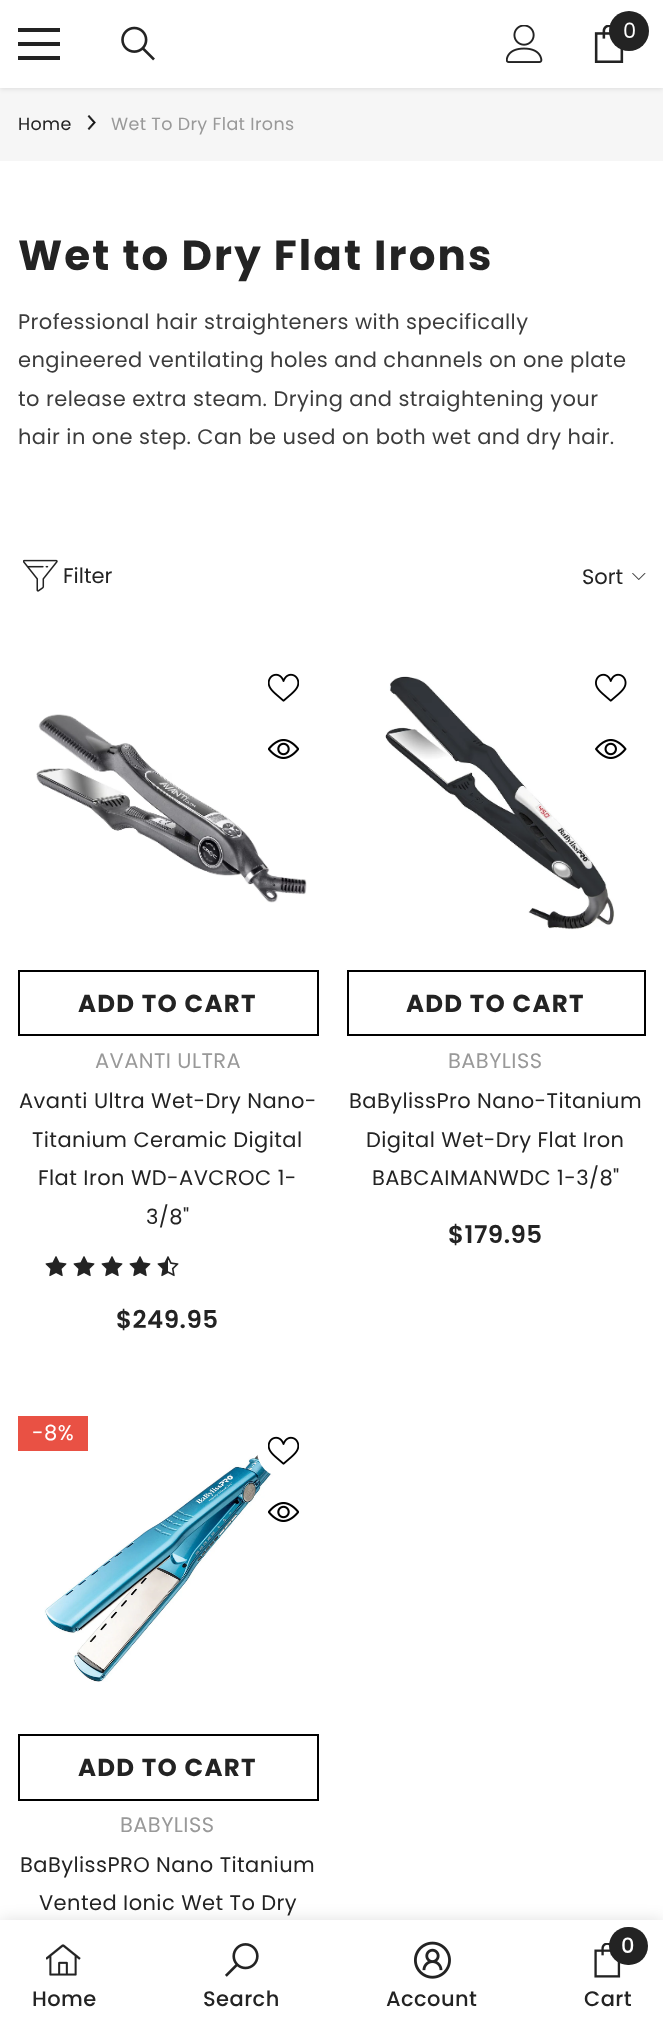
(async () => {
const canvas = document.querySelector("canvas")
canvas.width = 663
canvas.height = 2028
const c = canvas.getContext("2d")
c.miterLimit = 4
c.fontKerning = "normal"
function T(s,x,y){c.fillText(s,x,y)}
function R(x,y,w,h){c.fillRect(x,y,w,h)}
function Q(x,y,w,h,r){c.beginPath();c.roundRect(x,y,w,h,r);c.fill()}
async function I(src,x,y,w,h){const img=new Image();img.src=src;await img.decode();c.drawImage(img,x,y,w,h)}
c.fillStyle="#fff"
R(0,0,663,2028)
c.fillStyle="#f6f6f6"
R(0,88,663,73)
c.fillStyle="#0000001a"
c.filter="blur(2.5px)"
c.beginPath()
c.rect(0,2,663,87)
c.fill()
c.filter="none"
c.fillStyle="#fff"
R(0,0,663,88)
c.fillStyle="#232323"
R(18,42,42,4)
R(18,28,42,4)
R(18,56,42,4)
await I("1.png",121,26,34,35)
await I("2.png",506,25,37,38)
await I("3.png",594,25,30,38)
c.beginPath()
c.arc(629,31,20,0,7)
c.fill()
c.font="21px Poppins"
c.fillStyle="#fff"
T("0",623,38)
c.letterSpacing="0.35px"
c.font="17.5px Poppins"
c.fillStyle="#232323"
T("Home",18,130)
await I("4.png",87,115,9,15)
c.fillStyle="#999"
T("Wet To Dry Flat Irons",111,130)
c.letterSpacing="2.1px"
c.font="bold 42px Poppins"
c.fillStyle="#232323"
T("Wet to Dry Flat Irons",18,270)
c.letterSpacing="0.42px"
c.font="21px Poppins"
c.fillStyle="#3c3c3c"
T("Professional hair straighteners with specifically",18,329)
T("engineered ventilating holes and channels on one plate",18,367)
T("to release extra steam. Drying and straightening your",18,406)
T("hair in one step. Can be used on both wet and dry hair.",18,444)
await I("5.png",23,559,35,33)
c.letterSpacing="0px"
c.fillStyle="#232323"
T("Filter",63,583)
T("Sort",582,584)
await I("6.png",632,573,14,7)
await I("7.png",268,673,31,29)
await I("9.png",36,714,271,189)
await I("8.png",268,739,31,20)
c.strokeStyle="#000"
c.lineWidth=2
c.strokeRect(19,971,299,64)
c.letterSpacing="1.25px"
c.font="bold 24.5px Poppins"
T("ADD TO CART",78,1012)
c.letterSpacing="0.42px"
c.font="21px Poppins"
c.fillStyle="#999"
T("AVANTI ULTRA",95,1068)
c.fillStyle="#232323"
T("Avanti Ultra Wet-Dry Nano-",19,1108)
T("Titanium Ceramic Digital",32,1147)
T("Flat Iron WD-AVCROC 1-",38,1185)
T("3/8\"",146,1224)
await I("10.png",45,1256,22,21)
await I("10.png",73,1256,22,21)
await I("10.png",101,1256,22,21)
await I("10.png",129,1256,22,21)
await I("11.png",157,1256,22,21)
c.letterSpacing="0.5px"
c.font="600 24.5px Poppins"
T("$249.95",116,1328)
await I("14.png",385,676,230,254)
await I("12.png",595,673,32,29)
await I("13.png",595,739,32,20)
c.strokeRect(348,971,297,64)
c.letterSpacing="1.25px"
c.font="bold 24.5px Poppins"
T("ADD TO CART",406,1012)
c.letterSpacing="0.42px"
c.font="21px Poppins"
c.fillStyle="#999"
T("BABYLISS",448,1068)
c.fillStyle="#232323"
T("BaBylissPro Nano-Titanium",349,1108)
T("Digital Wet-Dry Flat Iron",366,1147)
T("BABCAIMANWDC 1-3/8\"",372,1185)
c.letterSpacing="0.5px"
c.font="600 24.5px Poppins"
T("$179.95",448,1243)
await I("15.png",44,1449,248,233)
c.fillStyle="#e95144"
R(18,1416,70,35)
c.letterSpacing="0.42px"
c.font="21px Poppins"
c.fillStyle="#fff"
T("-8%",32,1440)
Q(257,1425,53,52,26)
await I("7.png",268,1436,31,29)
await I("8.png",268,1502,31,20)
c.strokeRect(19,1735,299,65)
c.letterSpacing="1.25px"
c.font="bold 24.5px Poppins"
c.fillStyle="#232323"
T("ADD TO CART",78,1776)
c.letterSpacing="0.42px"
c.font="21px Poppins"
c.fillStyle="#999"
T("BABYLISS",120,1832)
c.fillStyle="#232323"
T("BaBylissPRO Nano Titanium",20,1872)
T("Vented Ionic Wet To Dry",39,1910)
c.fillStyle="#0000001f"
c.filter="blur(8px)"
c.beginPath()
c.rect(0,1920,663,108)
c.fill()
c.filter="none"
c.fillStyle="#fff"
R(0,1920,663,108)
await I("16.png",46,1944,35,32)
c.font="500 21px Poppins"
c.fillStyle="#232323"
T("Home",32,2006)
await I("17.png",225,1943,34,34)
T("Search",203,2006)
await I("18.png",414,1941,37,38)
T("Account",386,2006)
await I("19.png",594,1943,27,35)
Q(609,1927,39,38,19)
c.letterSpacing="0px"
c.fillStyle="#fff"
T("0",621,1953)
c.letterSpacing="0.42px"
c.fillStyle="#232323"
T("Cart",584,2006)
})()
